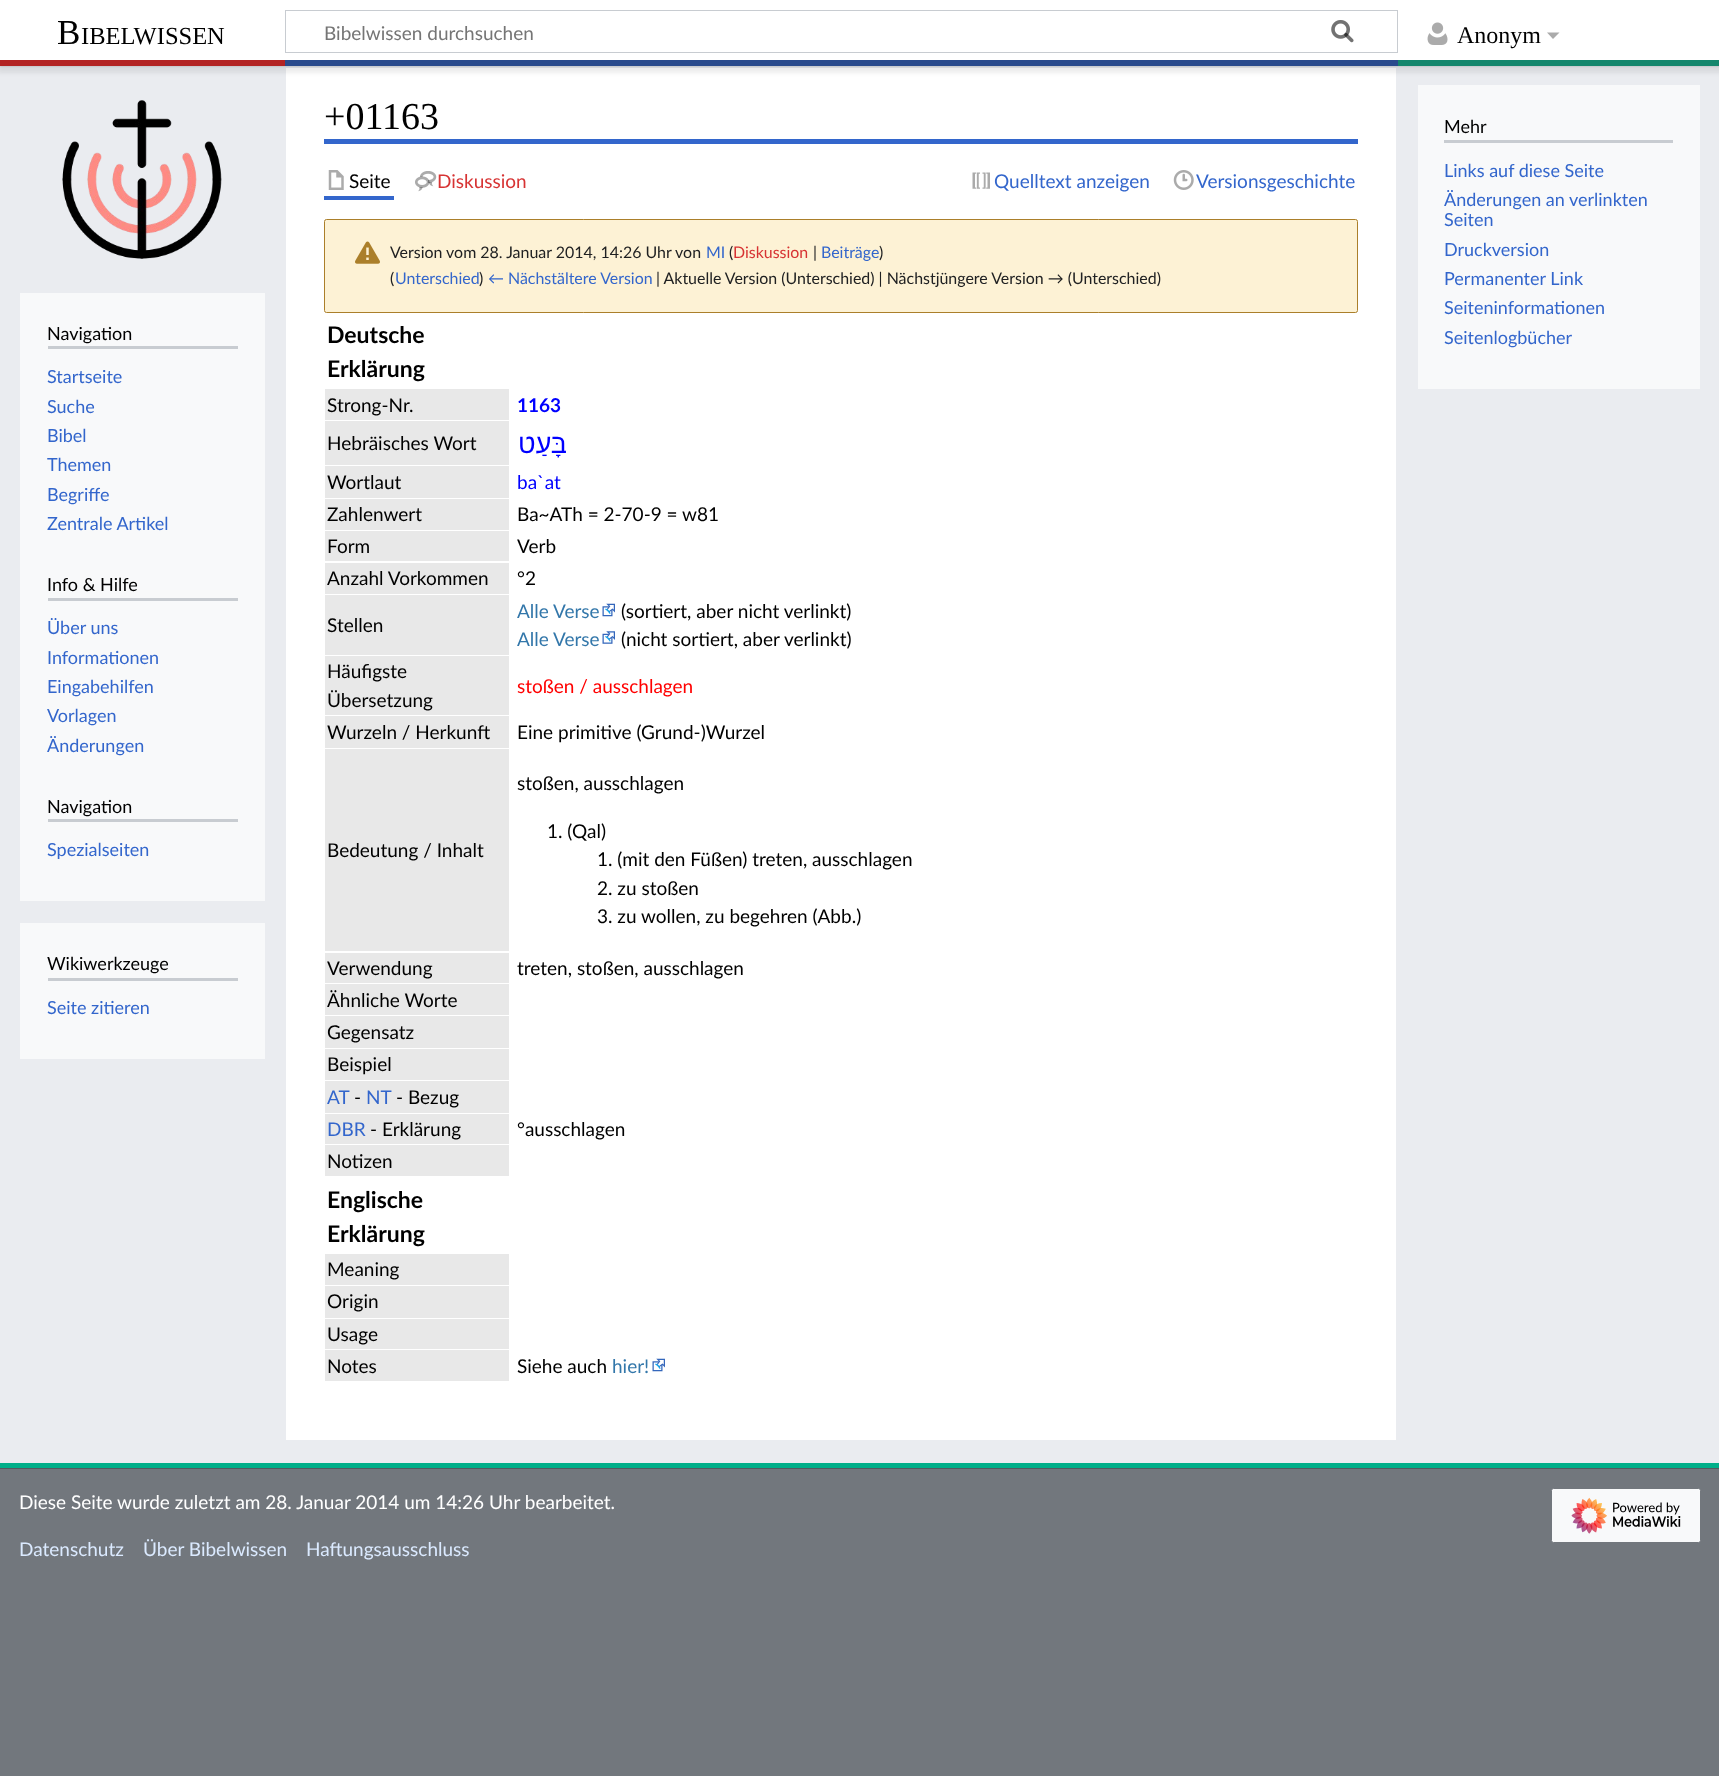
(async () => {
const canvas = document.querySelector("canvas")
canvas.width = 1719
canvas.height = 1776
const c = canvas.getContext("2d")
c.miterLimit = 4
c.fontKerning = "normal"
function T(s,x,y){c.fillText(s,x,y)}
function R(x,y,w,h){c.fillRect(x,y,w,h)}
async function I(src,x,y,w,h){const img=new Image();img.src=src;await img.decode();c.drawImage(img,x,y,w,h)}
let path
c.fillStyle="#72777d"
R(0,0,1719,1776)
c.fillStyle="#eaecf0"
R(0,66,1719,1397)
c.fillStyle="#fff"
R(286,68,1110,1372)
c.fillStyle="#00000033"
c.filter="blur(1px)"
c.beginPath()
c.rect(0,60,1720,6)
c.fill()
c.filter="none"
c.fillStyle="#00000012"
c.filter="blur(2px)"
c.beginPath()
c.rect(-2,61,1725,12)
c.fill()
c.filter="none"
c.fillStyle="#fff"
R(0,0,1719,60)
c.font="35px Liberation Serif"
c.fillStyle="#000"
T("B",57,44)
c.font="24.5px Liberation Serif"
T("IBELWISSEN",81,44)
c.strokeStyle="#c8ccd1"
c.strokeRect(285.5,10.5,1112,42)
await I("1.png",1331,20,23,23)
c.font="19px Lato"
c.fillStyle="#757575"
T("Bibelwissen durchsuchen",324,40)
await I("2.png",1331,20,23,23)
await I("3.png",1427,22,21,23)
c.font="24px Liberation Serif"
c.fillStyle="#000"
T("Anonym",1457,43)
c.fillStyle="#ababab"
path = new Path2D("M1559.5 32.5l-6.5 6.5l-6-6.5z")
c.fill(path)
c.fillStyle="#b32424"
R(0,60,285,6)
c.fillStyle="#2a4b8d"
R(285,60,1113,6)
c.fillStyle="#14866d"
R(1398,60,321,6)
c.fillStyle="#00af89"
R(0,1463,1719,5)
c.fillStyle="#36c"
R(324,139,1034,5)
c.font="38px Liberation Serif"
c.fillStyle="#000"
T("+01163",324,129)
c.fillStyle="#36c"
R(324,196,70,4)
await I("4.png",328,170,16,20)
c.font="19px Lato"
c.fillStyle="#000"
T("Seite",349,188)
await I("5.png",415,171,22,21)
c.fillStyle="#d73333"
T("Diskussion",437,188)
await I("6.png",972,172,18,17)
c.fillStyle="#36c"
T("Quelltext anzeigen",994,188)
await I("7.png",1173,170,21,20)
T("Versionsgeschichte",1196,188)
c.fillStyle="#fdf2d5"
c.beginPath()
c.roundRect(324.5,219.5,1033,93,2)
c.fill()
c.strokeStyle="#ab7f2a"
c.stroke()
await I("8.png",355,241,25,23)
c.font="15.95px Lato"
c.fillStyle="#202122"
T("Version vom 28. Januar 2014, 14:26 Uhr von",390,258)
c.fillStyle="#36c"
T("MI",706,258)
c.fillStyle="#202122"
T("(",729,258)
c.fillStyle="#d73333"
T("Diskussion",733,258)
c.fillStyle="#202122"
T("|",813,258)
c.fillStyle="#36c"
T("Beiträge",821,258)
c.fillStyle="#202122"
T(")",879,258)
T("(",390,284)
c.fillStyle="#36c"
T("Unterschied",395,284)
c.fillStyle="#202122"
T(")",479,284)
c.fillStyle="#36c"
T("← Nächstältere Version",488,284)
c.fillStyle="#202122"
T("| Aktuelle Version (Unterschied) | Nächstjüngere Version → (Unterschied)",656,284)
c.font="bold 23px Lato"
c.fillStyle="#000"
T("Deutsche",327,343)
T("Erklärung",327,377)
c.fillStyle="#e8e8e8"
R(325,389,184,31)
c.font="19px Lato"
c.fillStyle="#000"
T("Strong-Nr.",327,412)
c.font="bold 19px Lato"
c.fillStyle="#00f"
T("1163",517,412)
c.fillStyle="#e8e8e8"
R(325,421,184,44)
c.font="19px Lato"
c.fillStyle="#000"
T("Hebräisches Wort",327,450)
c.direction="rtl"
c.font="27px Liberation Sans"
c.fillStyle="#00f"
T("בָּעַט",567,453)
c.fillStyle="#e8e8e8"
R(325,466,184,32)
c.direction="ltr"
c.font="19px Lato"
c.fillStyle="#000"
T("Wortlaut",327,489)
c.fillStyle="#00f"
T("ba`at",517,489)
c.fillStyle="#e8e8e8"
R(325,499,184,31)
c.fillStyle="#000"
T("Zahlenwert",327,521)
T("Ba~ATh = 2-70-9 = w81",517,521)
c.fillStyle="#e8e8e8"
R(325,531,184,30)
c.fillStyle="#000"
T("Form",327,553)
T("Verb",517,553)
c.fillStyle="#e8e8e8"
R(325,563,184,31)
c.fillStyle="#000"
T("Anzahl Vorkommen",327,585)
T("°2",517,585)
c.fillStyle="#e8e8e8"
R(325,595,184,60)
c.fillStyle="#000"
T("Stellen",327,632)
c.fillStyle="#37a"
T("Alle Verse",517,618)
await I("9.png",602,603,13,14)
c.fillStyle="#000"
T("(sortiert, aber nicht verlinkt)",621,618)
c.fillStyle="#37a"
T("Alle Verse",517,646)
await I("10.png",602,631,13,13)
c.fillStyle="#000"
T("(nicht sortiert, aber verlinkt)",621,646)
c.fillStyle="#e8e8e8"
R(325,656,184,59)
c.fillStyle="#000"
T("Häufigste",327,678)
T("Übersetzung",327,707)
c.fillStyle="#f00"
T("stoßen / ausschlagen",517,693)
c.fillStyle="#e8e8e8"
R(325,716,184,32)
c.fillStyle="#000"
T("Wurzeln / Herkunft",327,739)
T("Eine primitive (Grund-)Wurzel",517,739)
c.fillStyle="#e8e8e8"
R(325,749,184,202)
c.fillStyle="#000"
T("Bedeutung / Inhalt",327,857)
T("stoßen, ausschlagen",517,790)
T("1. (Qal)",547,838)
T("1. (mit den Füßen) treten, ausschlagen",597,866)
T("2. zu stoßen",597,895)
T("3. zu wollen, zu begehren (Abb.)",597,923)
c.fillStyle="#e8e8e8"
R(325,953,184,30)
c.fillStyle="#000"
T("Verwendung",327,975)
T("treten, stoßen, ausschlagen",517,975)
c.fillStyle="#e8e8e8"
R(325,984,184,31)
c.fillStyle="#000"
T("Ähnliche Worte",327,1007)
c.fillStyle="#e8e8e8"
R(325,1016,184,32)
c.fillStyle="#000"
T("Gegensatz",327,1039)
c.fillStyle="#e8e8e8"
R(325,1049,184,31)
c.fillStyle="#000"
T("Beispiel",327,1071)
c.fillStyle="#e8e8e8"
R(325,1081,184,32)
c.fillStyle="#36c"
T("AT",327,1104)
c.fillStyle="#000"
T("-",354,1104)
c.fillStyle="#36c"
T("NT",366,1104)
c.fillStyle="#000"
T("- Bezug",396,1104)
c.fillStyle="#e8e8e8"
R(325,1114,184,30)
c.fillStyle="#36c"
T("DBR",327,1136)
c.fillStyle="#000"
T("- Erklärung",370,1136)
T("°ausschlagen",517,1136)
c.fillStyle="#e8e8e8"
R(325,1145,184,31)
c.fillStyle="#000"
T("Notizen",327,1168)
c.font="bold 23px Lato"
T("Englische",327,1208)
T("Erklärung",327,1242)
c.fillStyle="#e8e8e8"
R(325,1254,184,31)
c.font="19px Lato"
c.fillStyle="#000"
T("Meaning",327,1276)
c.fillStyle="#e8e8e8"
R(325,1286,184,32)
c.fillStyle="#000"
T("Origin",327,1308)
c.fillStyle="#e8e8e8"
R(325,1319,184,30)
c.fillStyle="#000"
T("Usage",327,1341)
c.fillStyle="#e8e8e8"
R(325,1350,184,31)
c.fillStyle="#000"
T("Notes",327,1373)
T("Siehe auch",517,1373)
c.fillStyle="#37a"
T("hier!",612,1373)
await I("9.png",652,1358,13,14)
c.fillStyle="#f8f9fa"
R(1418,85,282,304)
c.fillStyle="#c8ccd1"
R(1444,140,229,3)
c.font="18px Lato"
c.fillStyle="#000"
T("Mehr",1444,133)
c.fillStyle="#36c"
T("Links auf diese Seite",1444,177)
T("Änderungen an verlinkten",1444,206)
T("Seiten",1444,226)
T("Druckversion",1444,256)
T("Permanenter Link",1444,285)
T("Seiteninformationen",1444,314)
T("Seitenlogbücher",1444,344)
await I("11.png",62,100,160,159)
c.fillStyle="#f8f9fa"
R(20,293,245,608)
c.fillStyle="#c8ccd1"
R(48,346,190,3)
c.fillStyle="#000"
T("Navigation",47,340)
c.fillStyle="#36c"
T("Startseite",47,383)
T("Suche",47,413)
T("Bibel",47,442)
T("Themen",47,471)
T("Begriffe",47,501)
T("Zentrale Artikel",47,530)
c.fillStyle="#c8ccd1"
R(48,598,190,3)
c.fillStyle="#000"
T("Info & Hilfe",47,591)
c.fillStyle="#36c"
T("Über uns",47,634)
T("Informationen",47,664)
T("Eingabehilfen",47,693)
T("Vorlagen",47,722)
T("Änderungen",47,752)
c.fillStyle="#c8ccd1"
R(48,819,190,3)
c.fillStyle="#000"
T("Navigation",47,813)
c.fillStyle="#36c"
T("Spezialseiten",47,856)
c.fillStyle="#f8f9fa"
R(20,923,245,136)
c.fillStyle="#c8ccd1"
R(48,978,190,3)
c.fillStyle="#000"
T("Wikiwerkzeuge",47,970)
c.fillStyle="#36c"
T("Seite zitieren",47,1014)
c.fillStyle="#54595d"
R(0,1468,1719,1)
c.font="19px Lato"
c.fillStyle="#fff"
T("Diese Seite wurde zuletzt am 28. Januar 2014 um 14:26 Uhr bearbeitet.",19,1509)
c.fillStyle="#dbeaff"
T("Datenschutz",19,1556)
T("Über Bibelwissen",143,1556)
T("Haftungsausschluss",306,1556)
c.fillStyle="#f8f9fa"
c.beginPath()
c.roundRect(1551.5,1488.5,149,54,2)
c.fill()
c.strokeStyle="#72777d"
c.stroke()
await I("12.png",1571,1497,110,37)
})()
